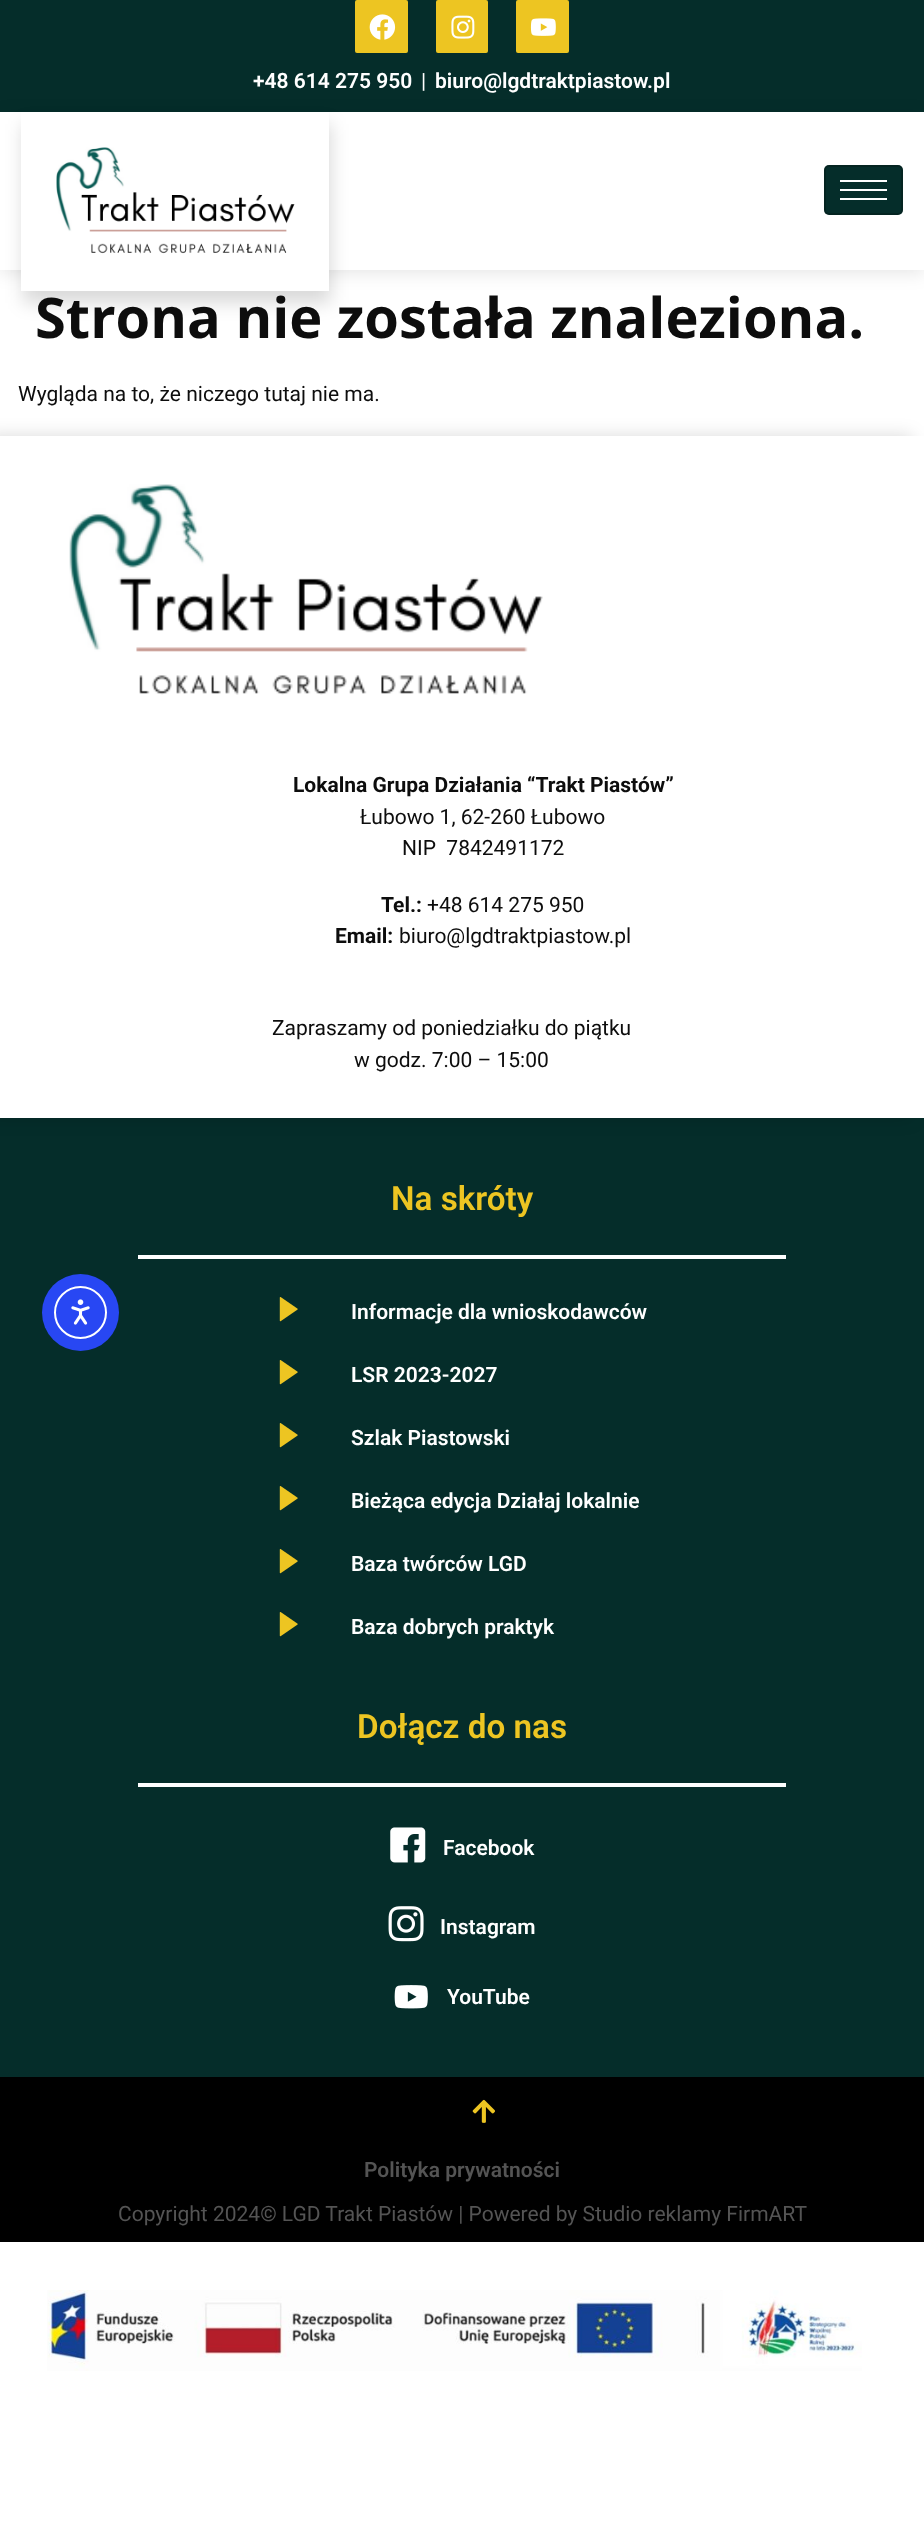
(async () => {
const canvas = document.querySelector("canvas")
canvas.width = 924
canvas.height = 2546
const c = canvas.getContext("2d")
c.miterLimit = 4
c.fontKerning = "normal"
function T(s,x,y){c.fillText(s,x,y)}
function R(x,y,w,h){c.fillRect(x,y,w,h)}
function Q(x,y,w,h,r){c.beginPath();c.roundRect(x,y,w,h,r);c.fill()}
async function I(src,x,y,w,h){const img=new Image();img.src=src;await img.decode();c.drawImage(img,x,y,w,h)}
c.fillStyle="#fff"
R(0,0,924,2546)
c.fillStyle="#052d2a"
R(0,0,924,112)
c.fillStyle="#edc522"
Q(355,0,53,53,2)
await I("1.png",369,14,27,26)
Q(436,0,52,53,2)
await I("2.png",451,15,24,24)
Q(516,0,53,53,2)
await I("3.png",530,18,26,18)
c.font="600 21px Roboto"
c.fillStyle="#fff"
T("+48 614 275 950",253,88)
c.font="21px Roboto"
T("|",421,88)
c.font="600 21px Roboto"
T("biuro@lgdtraktpiastow.pl",435,88)
c.fillStyle="#0000001a"
c.filter="blur(9px)"
c.beginPath()
c.rect(0,116,924,157)
c.fill()
c.filter="none"
c.fillStyle="#fff"
R(0,112,924,158)
c.fillStyle="#00000026"
c.filter="blur(9px)"
c.beginPath()
c.rect(23,124,308,179)
c.fill()
c.filter="none"
c.fillStyle="#fff"
R(21,112,308,179)
await I("4.png",56,147,239,107)
c.fillStyle="#052d2a"
Q(824,165,79,50,5)
c.beginPath()
c.roundRect(825,166,77,48,4)
c.strokeStyle="#00000033"
c.lineWidth=2
c.stroke()
c.fillStyle="#fff"
R(840,180,47,2)
R(840,189,47,2)
R(840,198,47,2)
c.font="bold 56px Open Sans"
c.fillStyle="#0d0d0d"
T("Strona nie została znaleziona.",35,338)
c.font="21px Roboto"
T("Wygląda na to, że niczego tutaj nie ma.",18,401)
c.fillStyle="#052d2a"
R(0,1118,924,959)
c.fillStyle="#2847f3"
c.beginPath()
c.arc(80.5,1312.5,38.5,0,7)
c.fill()
c.beginPath()
c.arc(80.5,1312.5,25.5,0,7)
c.strokeStyle="#fff"
c.stroke()
await I("5.png",71,1299,19,26)
c.fillStyle="#00000026"
c.filter="blur(9px)"
c.beginPath()
c.rect(-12,436,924,682)
c.fill()
c.filter="none"
c.fillStyle="#fff"
R(0,436,924,682)
await I("6.png",69,484,474,211)
c.font="bold 21px Roboto"
c.fillStyle="#0d0d0d"
T("Lokalna Grupa Działania “Trakt Piastów”",293,792)
c.font="21px Roboto"
T("Łubowo 1, 62-260 Łubowo",360,824)
T("NIP  7842491172",402,855)
c.font="bold 21px Roboto"
T("Tel.:",381,912)
c.font="21px Roboto"
T("+48 614 275 950",427,912)
c.font="bold 21px Roboto"
T("Email:",335,943)
c.font="21px Roboto"
T("biuro@lgdtraktpiastow.pl",399,943)
T("Zapraszamy od poniedziałku do piątku",272,1035)
T("w godz. 7:00 – 15:00",354,1067)
c.font="600 33.25px Roboto"
c.fillStyle="#edc522"
T("Na skróty",391,1210)
c.fillStyle="#fff"
R(138,1255,648,4)
await I("7.png",279,1297,19,25)
c.font="600 21px Roboto"
T("Informacje dla wnioskodawców",351,1319)
await I("7.png",279,1360,19,25)
T("LSR 2023-2027",351,1382)
await I("7.png",279,1423,19,25)
T("Szlak Piastowski",351,1445)
await I("7.png",279,1486,19,25)
T("Bieżąca edycja Działaj lokalnie",351,1508)
await I("7.png",279,1549,19,25)
T("Baza twórców LGD",351,1571)
await I("7.png",279,1612,19,25)
T("Baza dobrych praktyk",351,1634)
c.font="600 33.25px Roboto"
c.fillStyle="#edc522"
T("Dołącz do nas",357,1738)
c.fillStyle="#fff"
R(138,1783,648,4)
await I("8.png",390,1827,36,36)
c.font="600 21px Roboto"
T("Facebook",443,1855)
await I("9.png",388,1906,36,36)
T("Instagram",440,1934)
await I("10.png",394,1985,34,24)
T("YouTube",447,2004)
c.fillStyle="#000"
R(0,2077,924,165)
await I("11.png",472,2099,23,24)
c.fillStyle="#545454"
T("Polityka prywatności",364,2177)
c.font="21px Roboto"
T("Copyright 2024© LGD Trakt Piastów | Powered by Studio reklamy FirmART",118,2221)
await I("12.png",47,2290,815,81)
})()
